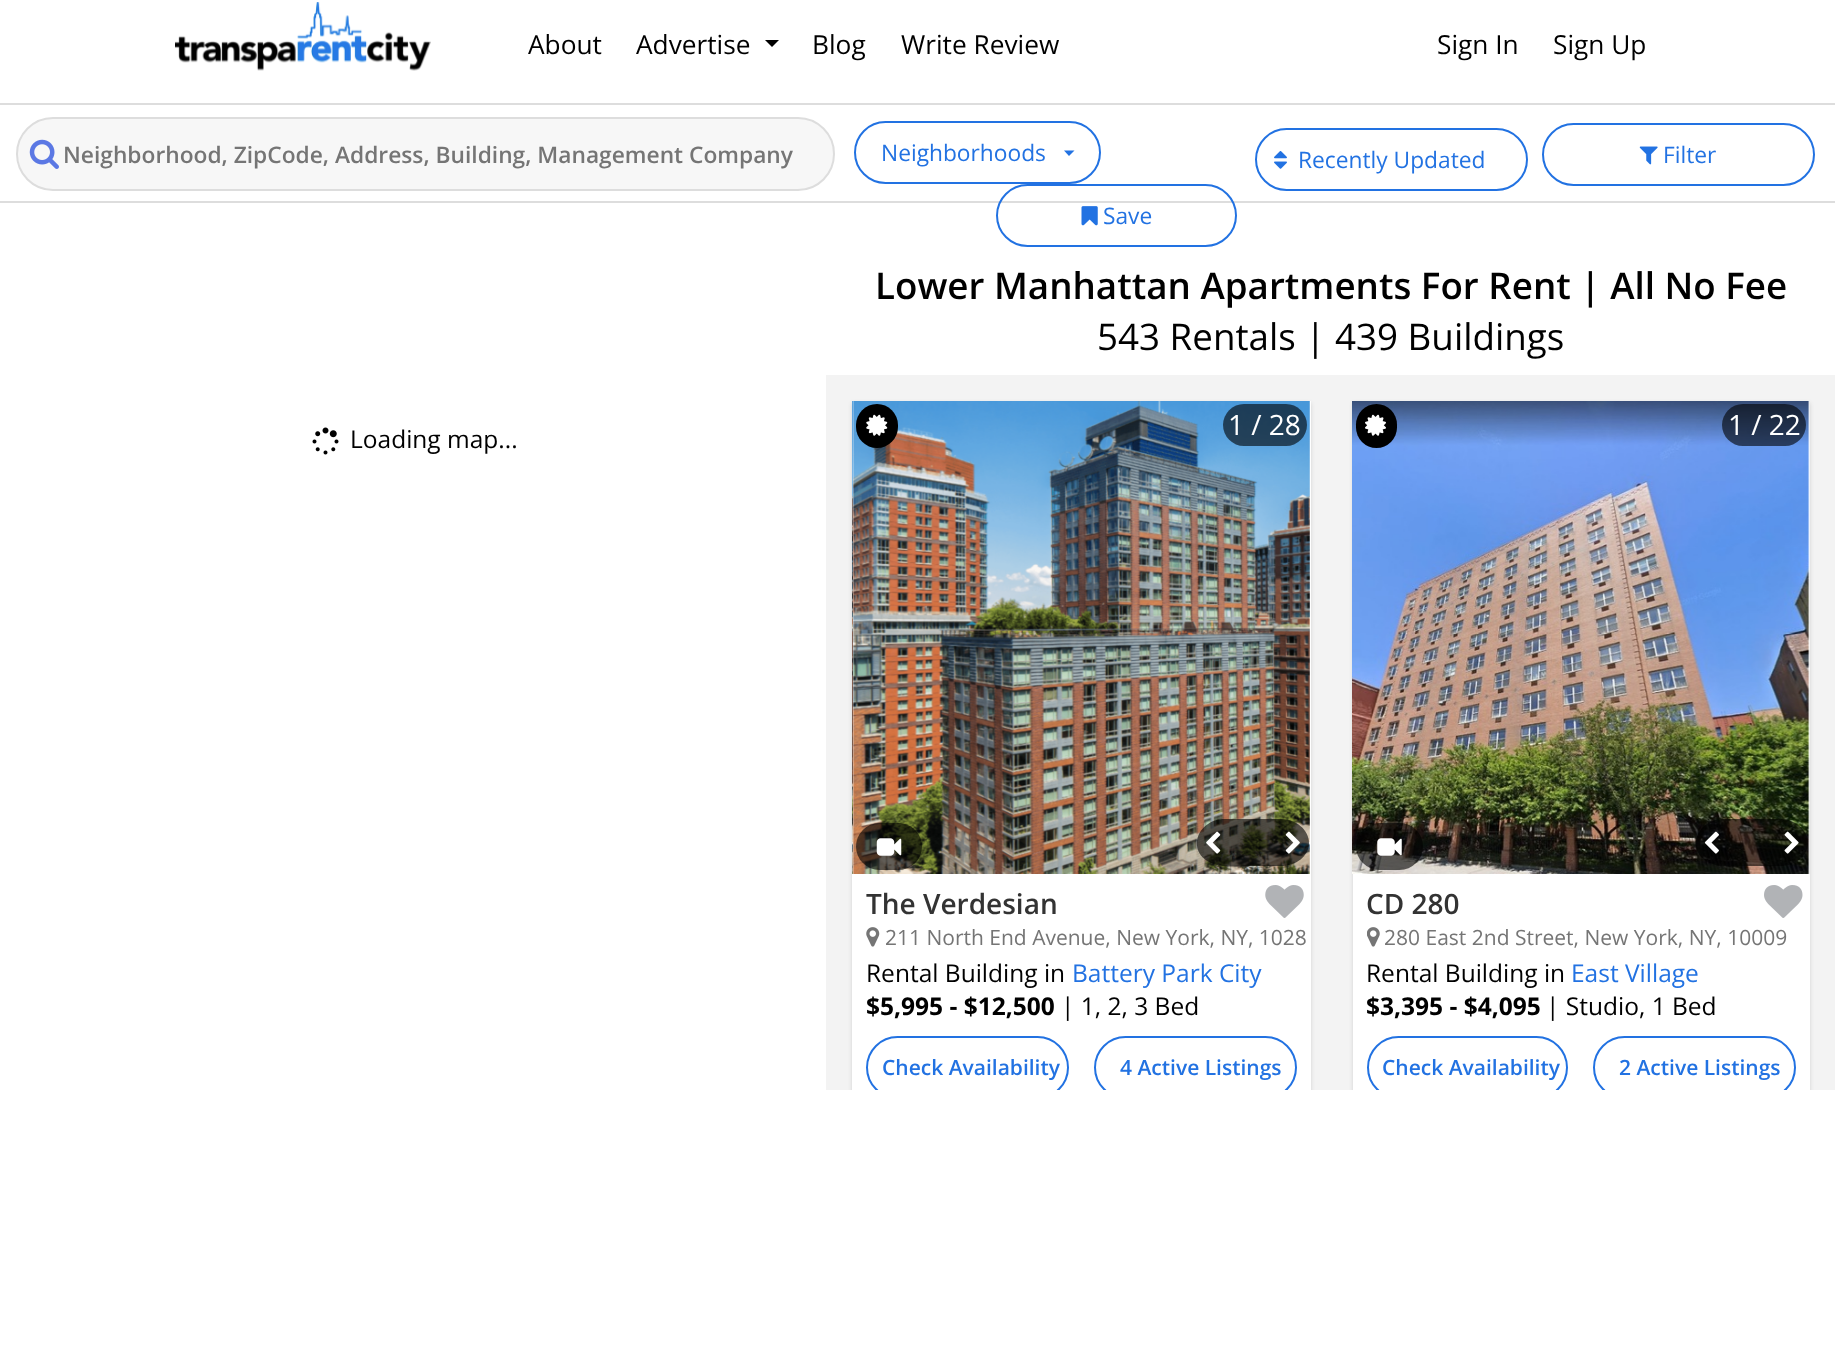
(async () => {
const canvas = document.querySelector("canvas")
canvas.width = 1835
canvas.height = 1352
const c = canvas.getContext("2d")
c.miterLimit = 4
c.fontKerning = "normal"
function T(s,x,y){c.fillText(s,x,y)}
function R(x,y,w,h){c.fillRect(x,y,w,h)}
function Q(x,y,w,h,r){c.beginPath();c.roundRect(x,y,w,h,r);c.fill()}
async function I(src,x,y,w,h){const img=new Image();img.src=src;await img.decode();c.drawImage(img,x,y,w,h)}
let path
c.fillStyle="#fff"
R(0,0,1835,1352)
c.fillStyle="#ddd"
R(0,103,1835,2)
await I("1.png",175,2,256,69)
c.font="26.25px Open Sans"
c.fillStyle="#000"
T("About",528,54)
T("Advertise",636,54)
path = new Path2D("M765 40h14l-7 7z")
c.fill(path)
T("Blog",812,54)
T("Write Review",901,54)
T("Sign In",1437,54)
T("Sign Up",1553,54)
c.fillStyle="#ddd"
R(0,201,1835,2)
c.fillStyle="#f7f7f7"
c.beginPath()
c.roundRect(17,118,817,72,36)
c.fill()
c.strokeStyle="#ddd"
c.lineWidth=2
c.stroke()
await I("2.png",29,139,30,30)
c.font="600 22.75px Open Sans"
c.fillStyle="#757575"
T("Neighborhood, ZipCode, Address, Building, Management Company",63,163)
c.beginPath()
c.roundRect(855,122,245,61,30.5)
c.strokeStyle="#2272e2"
c.stroke()
c.font="22.75px Open Sans"
c.fillStyle="#2272e2"
T("Neighborhoods",881,161)
path = new Path2D("M1064 150.5h10.5l-5.5 5.5z")
c.fill(path)
c.beginPath()
c.roundRect(1256,129,271,61,30.5)
c.stroke()
await I("3.png",1274,151,13,18)
T("Recently Updated",1298,168)
c.beginPath()
c.roundRect(1543,124,271,61,30.5)
c.stroke()
await I("4.png",1639,146,19,19)
T("Filter",1663,163)
c.beginPath()
c.roundRect(997,185,239,61,30.5)
c.stroke()
await I("5.png",1081,206,17,20)
T("Save",1103,224)
await I("6.png",312,427,27,28)
c.font="24.5px Open Sans"
c.fillStyle="#000"
T("Loading map...",350,448)
c.font="600 36.75px Open Sans"
T("Lower Manhattan Apartments For Rent | All No Fee",875,299)
c.font="36.75px Open Sans"
T("543 Rentals | 439 Buildings",1097,350)
c.fillStyle="#f3f3f3"
R(826,375,1009,715)
c.save()
c.beginPath()
c.rect(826,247,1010,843)
c.clip()
c.fillStyle="#00000021"
c.filter="blur(2px)"
c.beginPath()
c.rect(852,403,459,792)
c.fill()
c.filter="none"
c.restore()
c.fillStyle="#fff"
R(852,401,459,689)
await I("7.png",852,401,1,473)
await I("8.png",852,401,458,473)
c.fillStyle="#00000099"
path = new Path2D("M1225 819h28v47c-11 0-29 2-39-2c-29-10-18-45 11-45z")
c.fill(path)
await I("9.png",1206,831,15,23)
path = new Path2D("M1253 819h28c15 0 28 11 28 24c0 13-13 23-28 23h-28z")
c.fill(path)
await I("10.png",1285,831,15,23)
c.fillStyle="#000"
Q(856,404,42,44,21)
await I("11.png",866,414,22,22)
c.fillStyle="#00000099"
Q(1223,404,84,42,21)
c.font="28px Open Sans"
c.fillStyle="#fff"
T("1 / 28",1228,435)
c.fillStyle="#00000099"
Q(856,823,66,47,23.5)
await I("12.png",876,838,26,18)
await I("13.png",1265,885,39,33)
c.font="600 28px Open Sans"
c.fillStyle="#333"
T("The Verdesian",866,914)
await I("14.png",866,927,14,20)
c.font="21px Open Sans"
c.fillStyle="#757575"
T("211 North End Avenue, New York, NY, 1028",885,945)
c.font="24.5px Open Sans"
c.fillStyle="#000"
T("Rental Building in",866,982)
c.fillStyle="#2272e2"
T("Battery Park City",1072,982)
c.font="bold 24.5px Open Sans"
c.fillStyle="#000"
T("$5,995 - $12,500",866,1015)
c.font="24.5px Open Sans"
T("| 1, 2, 3 Bed",1061,1015)
c.save()
c.beginPath()
c.rect(826,247,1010,843)
c.clip()
c.beginPath()
c.roundRect(867,1037,201,61,30.5)
c.stroke()
c.restore()
c.font="600 21px Open Sans"
c.fillStyle="#2272e2"
T("Check Availability",882,1075)
c.save()
c.beginPath()
c.rect(826,247,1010,843)
c.clip()
c.beginPath()
c.roundRect(1095,1037,201,61,30.5)
c.stroke()
c.restore()
T("4 Active Listings",1120,1075)
c.save()
c.beginPath()
c.rect(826,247,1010,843)
c.clip()
c.fillStyle="#00000021"
c.filter="blur(2px)"
c.beginPath()
c.rect(1353,403,457,792)
c.fill()
c.filter="none"
c.restore()
c.fillStyle="#fff"
R(1353,401,457,689)
await I("15.png",1352,401,458,473)
c.fillStyle="#00000099"
path = new Path2D("M1724 819h28v47c-11 0-30 2-39-2c-29-10-18-45 11-45z")
c.fill(path)
await I("16.png",1704,831,15,23)
path = new Path2D("M1752 819h28c15 0 28 11 28 24c0 13-13 23-28 23h-28z")
c.fill(path)
await I("17.png",1784,831,15,23)
c.fillStyle="#000"
Q(1356,404,41,44,20.5)
await I("18.png",1365,414,21,22)
c.fillStyle="#00000099"
Q(1722,404,84,42,21)
c.font="28px Open Sans"
c.fillStyle="#fff"
T("1 / 22",1728,435)
c.fillStyle="#00000099"
Q(1356,823,67,47,23.5)
await I("19.png",1377,838,25,18)
await I("20.png",1764,885,39,33)
c.font="600 28px Open Sans"
c.fillStyle="#333"
T("CD 280",1366,914)
await I("21.png",1367,927,13,20)
c.font="21px Open Sans"
c.fillStyle="#757575"
T("280 East 2nd Street, New York, NY, 10009",1384,945)
c.font="24.5px Open Sans"
c.fillStyle="#000"
T("Rental Building in",1366,982)
c.fillStyle="#2272e2"
T("East Village",1571,982)
c.font="bold 24.5px Open Sans"
c.fillStyle="#000"
T("$3,395 - $4,095",1366,1015)
c.font="24.5px Open Sans"
T("| Studio, 1 Bed",1546,1015)
c.save()
c.beginPath()
c.rect(826,247,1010,843)
c.clip()
c.beginPath()
c.roundRect(1368,1037,199,61,30.5)
c.stroke()
c.restore()
c.font="600 21px Open Sans"
c.fillStyle="#2272e2"
T("Check Availability",1382,1075)
c.save()
c.beginPath()
c.rect(826,247,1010,843)
c.clip()
c.beginPath()
c.roundRect(1594,1037,201,61,30.5)
c.stroke()
c.restore()
T("2 Active Listings",1619,1075)
})()
